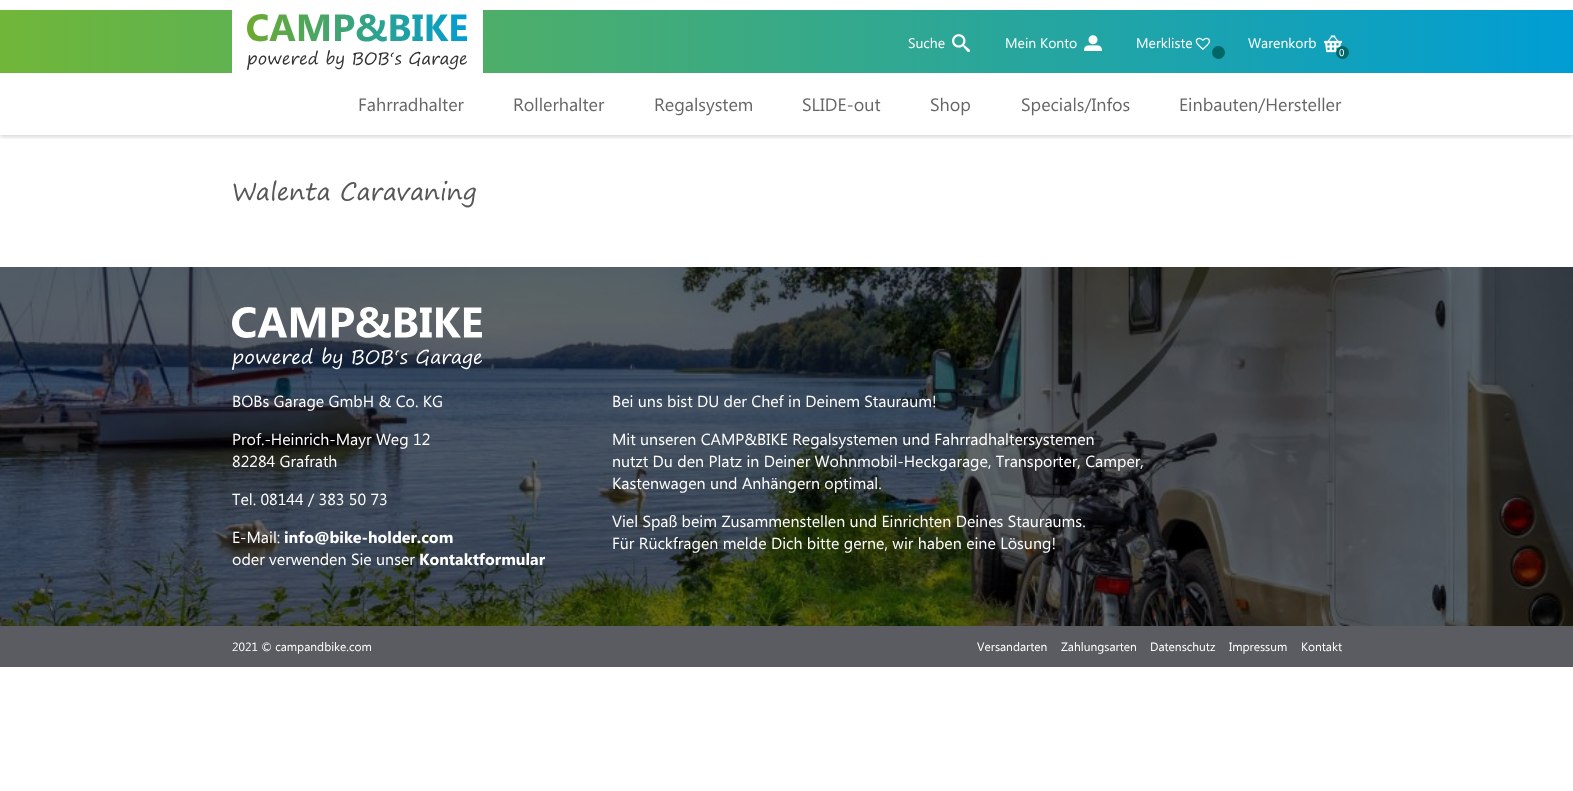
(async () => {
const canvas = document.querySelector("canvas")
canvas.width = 1573
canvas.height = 791
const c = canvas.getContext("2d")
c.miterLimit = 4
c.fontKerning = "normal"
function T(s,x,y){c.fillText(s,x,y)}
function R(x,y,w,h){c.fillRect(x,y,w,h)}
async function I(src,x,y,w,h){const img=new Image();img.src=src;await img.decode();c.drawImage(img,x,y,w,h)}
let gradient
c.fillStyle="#fff"
R(0,0,1573,791)
c.save()
c.beginPath()
c.rect(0,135,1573,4)
c.clip()
c.fillStyle="#00000029"
c.filter="blur(2px)"
c.beginPath()
c.rect(0,75,1573,62)
c.fill()
c.filter="none"
c.restore()
gradient = c.createLinearGradient(0,42,1573,41)
gradient.addColorStop(0,"#70b639")
gradient.addColorStop(1,"#009dd4")
c.fillStyle = gradient
R(0,10,1573,63)
c.fillStyle="#fff"
R(232,10,251,63)
await I("1.png",247,14,220,56)
c.font="14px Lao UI"
T("Suche",908,48)
await I("2.png",952,34,18,19)
T("Mein Konto",1005,48)
await I("3.png",1084,35,18,16)
T("Merkliste",1136,48)
await I("4.png",1195,37,15,13)
c.fillStyle="#016666"
c.beginPath()
c.arc(1218.5,52.5,6.5,0,7)
c.fill()
c.fillStyle="#fff"
T("Warenkorb",1248,48)
await I("5.png",1324,35,18,18)
c.fillStyle="#016666"
c.beginPath()
c.arc(1342.5,52.5,6.5,0,7)
c.fill()
c.font="10px Lao UI"
c.fillStyle="#fff"
T("0",1339,56)
c.font="18px Lao UI"
c.fillStyle="#666"
T("Fahrradhalter",358,111)
T("Rollerhalter",513,111)
T("Regalsystem",654,111)
T("SLIDE-out",802,111)
T("Shop",930,111)
T("Specials/Infos",1021,111)
T("Einbauten/Hersteller",1179,111)
c.font="24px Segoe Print"
c.fillStyle="#575756"
T("Walenta Caravaning",232,200)
await I("6.png",0,267,1573,359)
await I("7.png",232,307,250,63)
c.font="16px Lao UI"
c.fillStyle="#fff"
T("BOBs Garage GmbH & Co. KG",232,407)
T("Prof.-Heinrich-Mayr Weg 12",232,445)
T("82284 Grafrath",232,467)
T("Tel. 08144 / 383 50 73",232,505)
T("E-Mail:",232,543)
c.font="bold 16px Lao UI"
T("info@bike-holder.com",284,543)
c.font="16px Lao UI"
T("oder verwenden Sie unser",232,565)
c.font="bold 16px Lao UI"
T("Kontaktformular",419,565)
c.font="16px Lao UI"
T("Bei uns bist DU der Chef in Deinem Stauraum!",612,407)
T("Mit unseren CAMP&BIKE Regalsystemen und Fahrradhaltersystemen",612,445)
T("nutzt Du den Platz in Deiner Wohnmobil-Heckgarage, Transporter, Camper,",612,467)
T("Kastenwagen und Anhängern optimal.",612,489)
T("Viel Spaß beim Zusammenstellen und Einrichten Deines Stauraums.",612,527)
T("Für Rückfragen melde Dich bitte gerne, wir haben eine Lösung!",612,549)
c.fillStyle="#5b5c61"
R(0,626,1573,41)
c.font="12px Lao UI"
c.fillStyle="#fff"
T("2021 © campandbike.com",232,651)
T("Versandarten",977,651)
T("Zahlungsarten",1061,651)
T("Datenschutz",1150,651)
T("Impressum",1229,651)
T("Kontakt",1301,651)
})()
